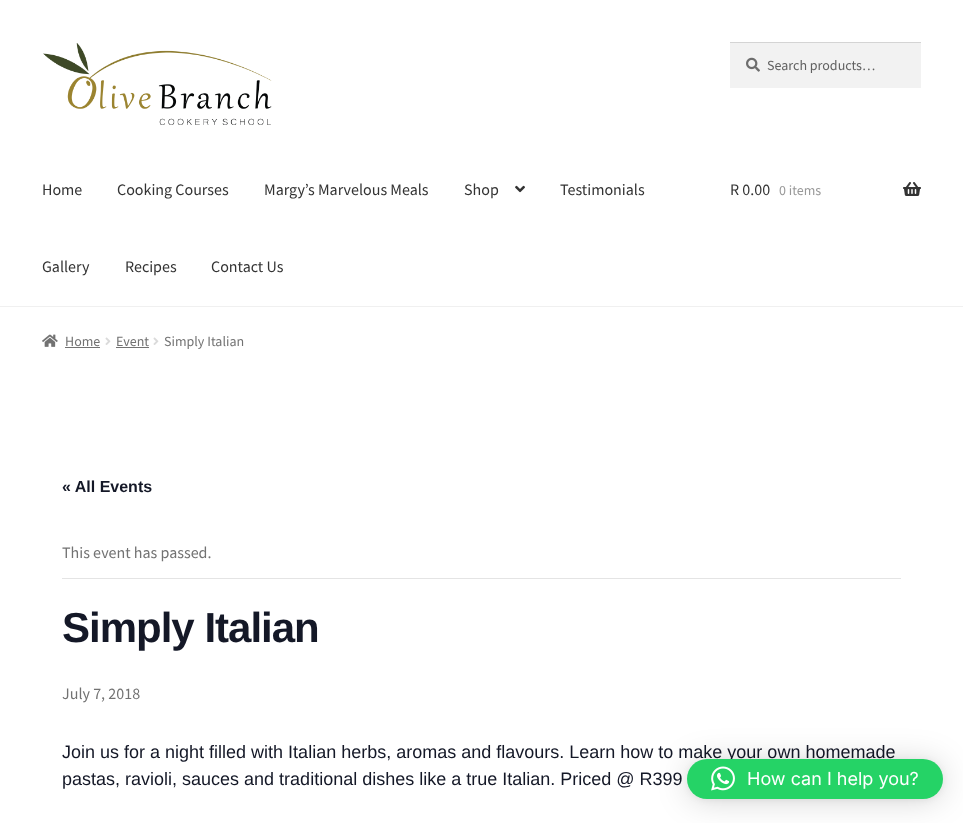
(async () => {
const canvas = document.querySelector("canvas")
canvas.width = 963
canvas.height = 823
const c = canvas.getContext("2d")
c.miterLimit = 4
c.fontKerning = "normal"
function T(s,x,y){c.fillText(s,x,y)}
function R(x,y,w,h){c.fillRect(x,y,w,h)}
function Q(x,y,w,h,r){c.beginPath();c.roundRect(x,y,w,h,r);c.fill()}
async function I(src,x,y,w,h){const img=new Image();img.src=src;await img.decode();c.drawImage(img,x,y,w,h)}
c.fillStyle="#fff"
R(0,0,963,823)
c.fillStyle="#f0f0f0"
R(0,306,963,1)
await I("1.png",43,43,229,82)
c.fillStyle="#f2f2f2"
R(730,43,191,45)
await I("2.png",746,57,14,15)
c.fillStyle="#d4d4d4"
R(730,42,191,1)
c.font="14px Source Sans Pro"
c.fillStyle="#616161"
T("Search products…",767,70)
c.font="16px Source Sans Pro"
c.fillStyle="#333"
T("Home",42,195)
T("Cooking Courses",117,195)
T("Margy’s Marvelous Meals",264,195)
T("Shop",464,195)
await I("3.png",515,185,10,8)
T("Testimonials",560,195)
T("Gallery",42,272)
T("Recipes",125,272)
T("Contact Us",211,272)
T("R 0.00",730,195)
c.font="14px Source Sans Pro"
c.fillStyle="#999"
T("0 items",779,195)
await I("4.png",903,182,18,14)
await I("5.png",42,334,16,13)
c.fillStyle="#727272"
T("Home",65,346)
R(65,347,35,1)
await I("6.png",105,337,6,8)
T("Event",116,346)
R(116,347,33,1)
await I("6.png",153,337,6,8)
T("Simply Italian",164,346)
c.font="bold 16px Liberation Sans"
c.fillStyle="#141827"
T("« All Events",62,492)
c.fillStyle="#e4e4e4"
R(62,578,839,1)
c.font="16px Source Sans Pro"
c.fillStyle="#727272"
T("This event has passed.",62,558)
c.letterSpacing="-1px"
c.font="bold 42px Liberation Sans"
c.fillStyle="#141827"
T("Simply Italian",62,642)
c.letterSpacing="0px"
c.font="16px Source Sans Pro"
c.fillStyle="#727272"
T("July 7, 2018",62,699)
c.font="18px Liberation Sans"
c.fillStyle="#141827"
T("Join us for a night filled with Italian herbs, aromas and flavours. Learn how to make your own homemade",62,758)
T("pastas, ravioli, sauces and traditional dishes like a true Italian. Priced @ R399",62,785)
c.fillStyle="#00000029"
c.filter="blur(16px)"
c.beginPath()
c.roundRect(687,761,256,40,20)
c.fill()
c.filter="none"
c.fillStyle="#0000000f"
c.filter="blur(3px)"
c.beginPath()
c.roundRect(687,760,256,40,20)
c.fill()
c.filter="none"
c.fillStyle="#25d366"
Q(687,759,256,40,20)
await I("7.png",711,766,24,25)
c.font="18px Inter"
c.fillStyle="#fff"
T("How can I help you?",747,785)
})()
